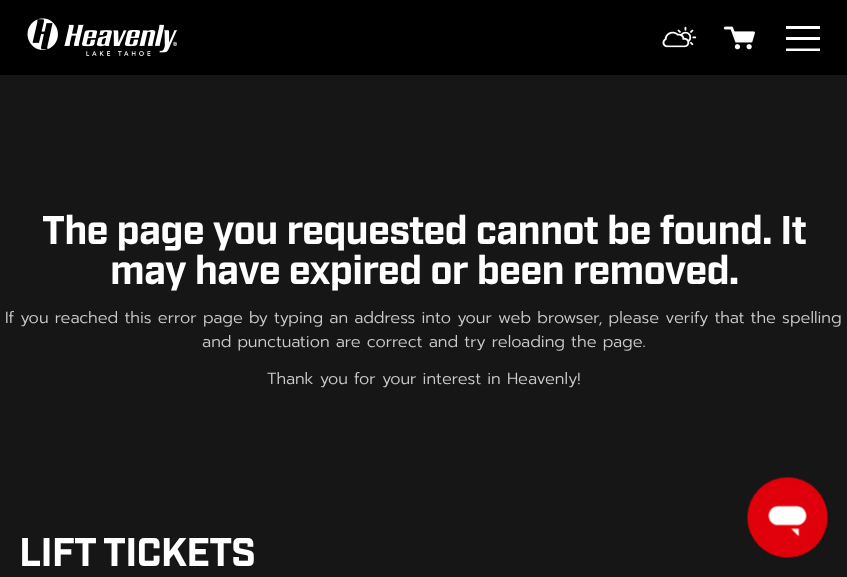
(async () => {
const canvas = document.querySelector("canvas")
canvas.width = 847
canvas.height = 577
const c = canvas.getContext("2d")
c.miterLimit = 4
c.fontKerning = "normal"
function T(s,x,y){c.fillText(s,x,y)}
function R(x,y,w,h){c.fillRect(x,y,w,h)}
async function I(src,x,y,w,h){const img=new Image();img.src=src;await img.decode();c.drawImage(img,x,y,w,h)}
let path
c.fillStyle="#161616"
R(0,0,847,577)
c.fillStyle="#000"
R(0,0,847,75)
await I("1.png",27,18,150,38)
await I("2.png",662,26,35,22)
await I("3.png",723,26,32,24)
c.fillStyle="#fff"
path = new Path2D("M786 26h34v3h-34zm0 14v-3h34v3zm0 11v-2.5h34v2.5z")
c.fill(path)
c.letterSpacing="-0.8px"
c.font="bold 40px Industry"
T("The page you requested cannot be found. It",42,244)
T("may have expired or been removed.",110,284)
c.letterSpacing="0px"
c.font="300 16.25px Prompt"
c.fillStyle="#ccc"
T("If you reached this error page by typing an address into your web browser, please verify that the spelling",5,323)
T("and punctuation are correct and try reloading the page.",202,347)
T("Thank you for your interest in Heavenly!",267,384)
c.letterSpacing="-0.8px"
c.font="bold 40px Industry"
c.fillStyle="#fff"
T("LIFT TICKETS",19,566)
await I("4.png",747,477,81,81)
})()
